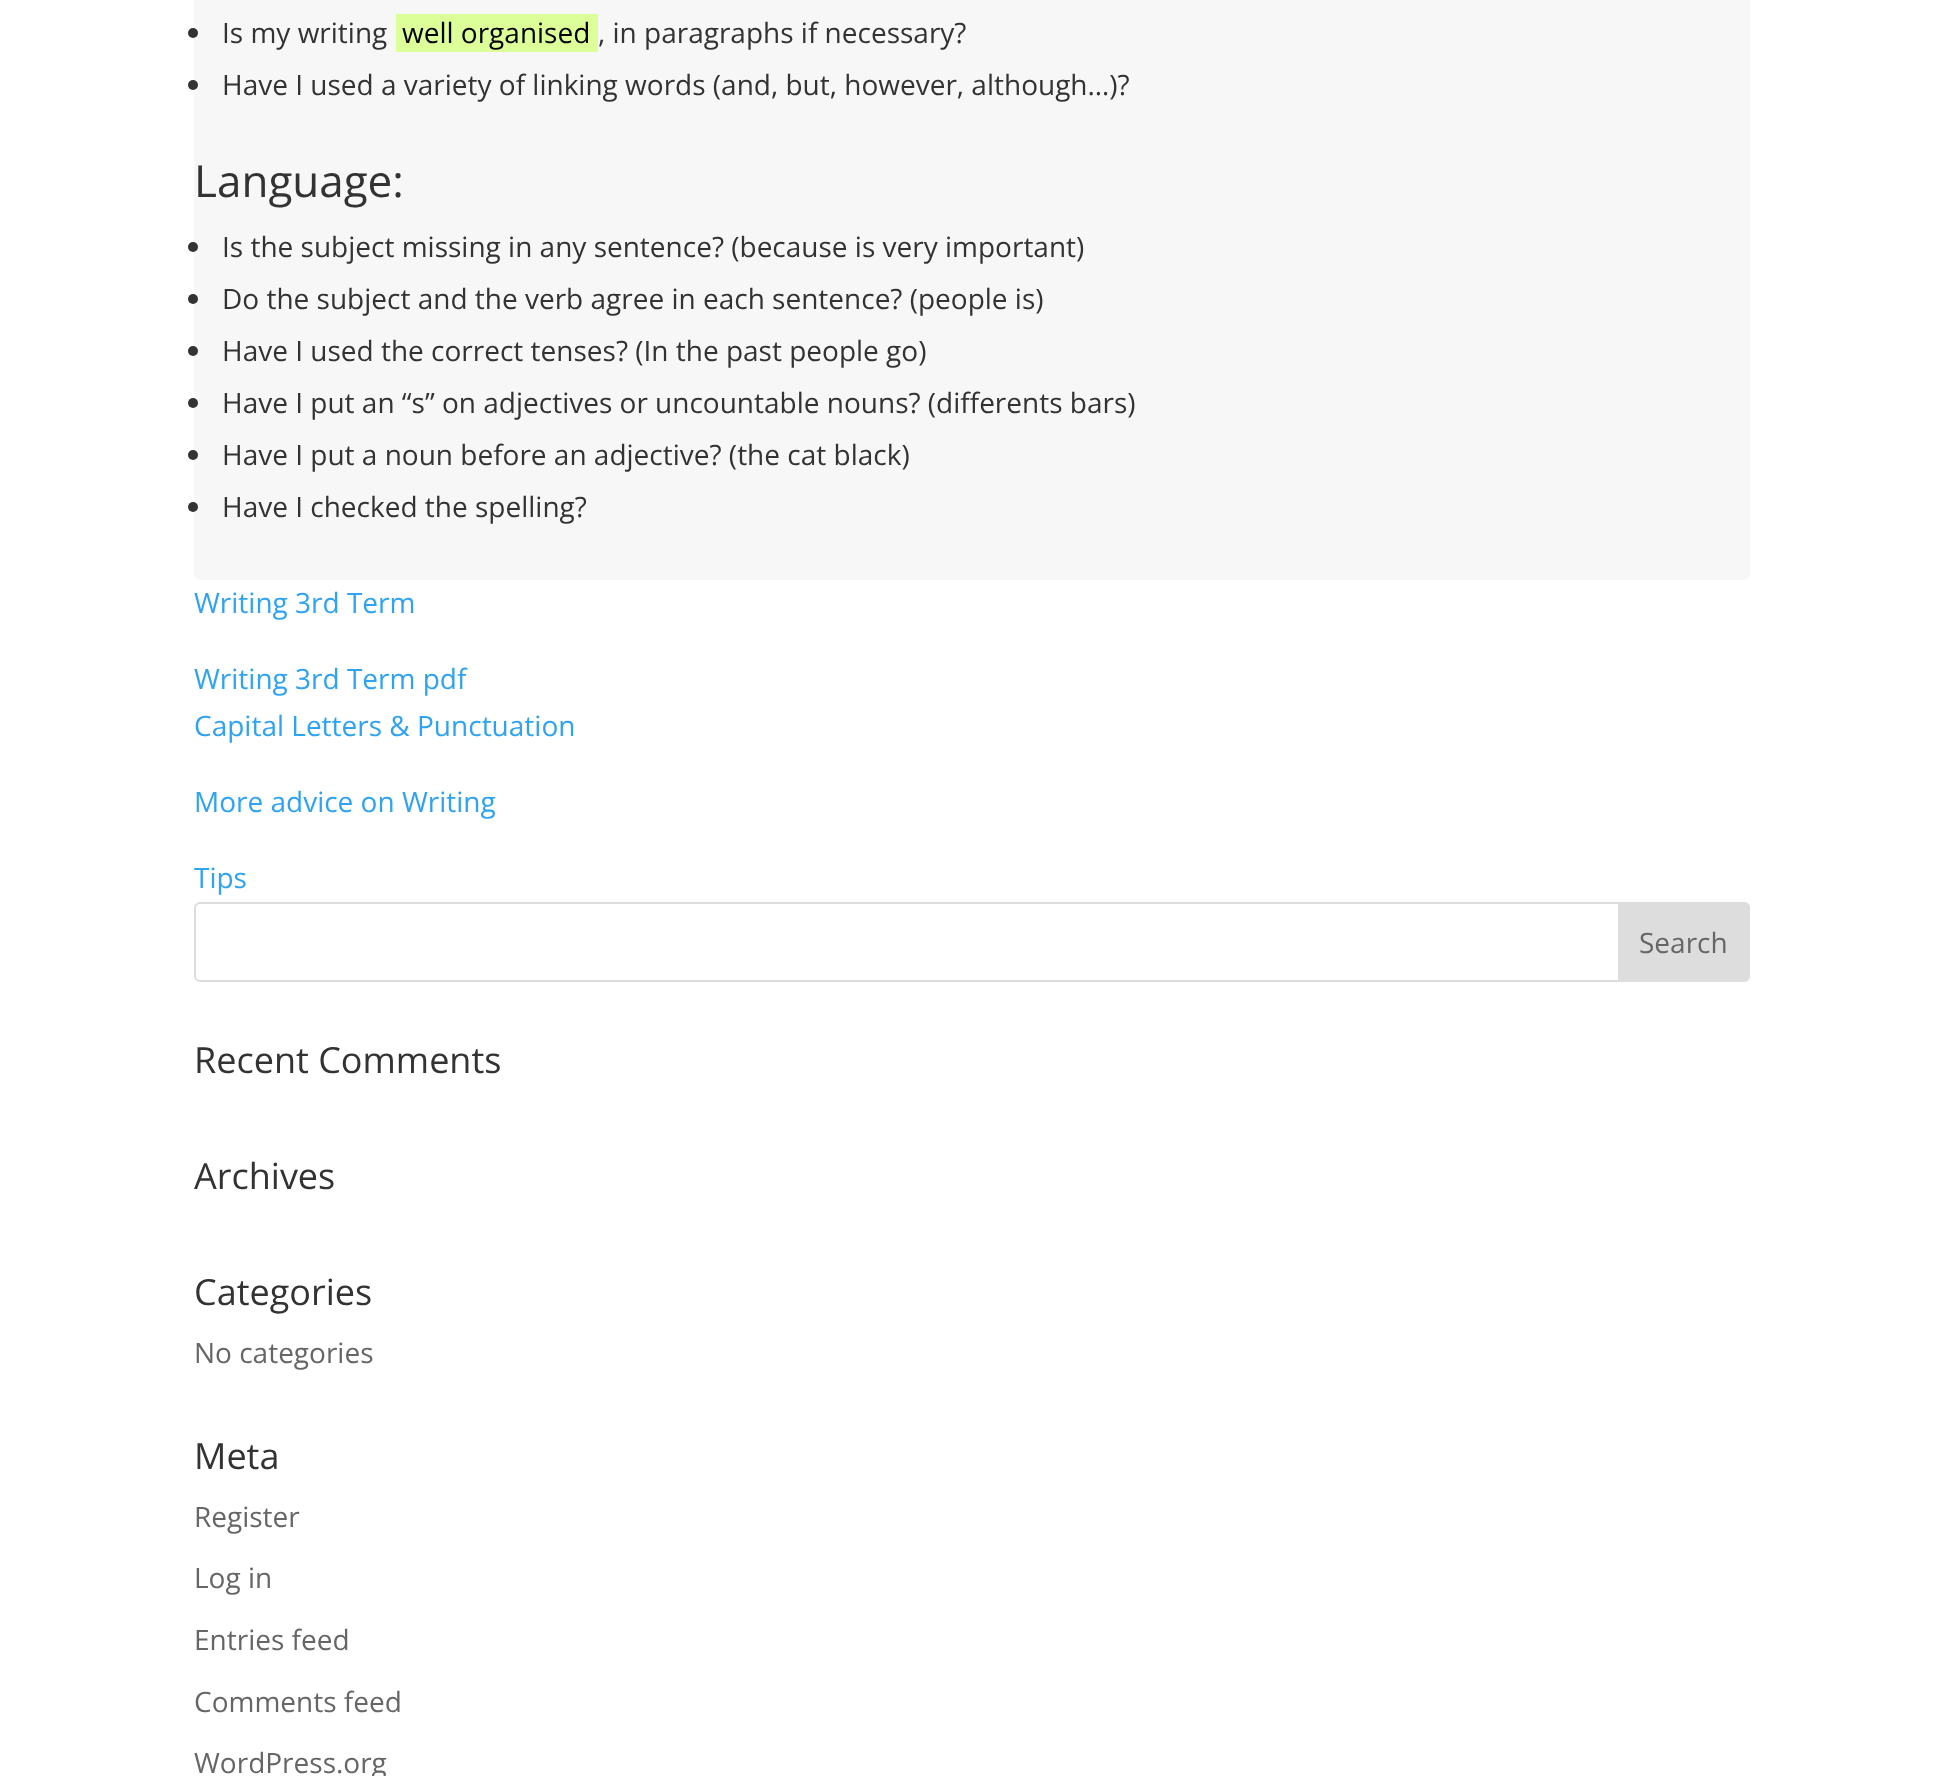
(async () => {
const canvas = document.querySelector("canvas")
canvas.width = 1944
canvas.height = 1776
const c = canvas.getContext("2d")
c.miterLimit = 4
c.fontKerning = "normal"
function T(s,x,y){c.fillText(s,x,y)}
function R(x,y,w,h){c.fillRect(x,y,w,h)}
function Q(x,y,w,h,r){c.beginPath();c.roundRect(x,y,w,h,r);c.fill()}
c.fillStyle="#fff"
R(0,0,1944,1776)
c.fillStyle="#f7f7f7"
Q(194,-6,1556,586,6)
c.fillStyle="#333"
c.beginPath()
c.arc(193,33,5,0,7)
c.fill()
c.font="28px Open Sans"
T("Is my writing",222,43)
c.fillStyle="#df9"
R(396,14,202,38)
c.fillStyle="#000"
T("well organised",402,43)
c.fillStyle="#333"
T(", in paragraphs if necessary?",598,43)
c.beginPath()
c.arc(193,85,5,0,7)
c.fill()
T("Have I used a variety of linking words (and, but, however, although…)?",222,95)
c.font="44px Open Sans"
T("Language:",194,197)
c.beginPath()
c.arc(193,247,5,0,7)
c.fill()
c.font="28px Open Sans"
T("Is the subject missing in any sentence? (because is very important)",222,257)
c.beginPath()
c.arc(193,299,5,0,7)
c.fill()
T("Do the subject and the verb agree in each sentence? (people is)",222,309)
c.beginPath()
c.arc(193,351,5,0,7)
c.fill()
T("Have I used the correct tenses? (In the past people go)",222,361)
c.beginPath()
c.arc(193,403,5,0,7)
c.fill()
T("Have I put an “s” on adjectives or uncountable nouns? (differents bars)",222,413)
c.beginPath()
c.arc(193,455,5,0,7)
c.fill()
T("Have I put a noun before an adjective? (the cat black)",222,465)
c.beginPath()
c.arc(193,507,5,0,7)
c.fill()
T("Have I checked the spelling?",222,517)
c.fillStyle="#2ea3f2"
T("Writing 3rd Term",194,613)
T("Writing 3rd Term pdf",194,689)
T("Capital Letters & Punctuation",194,736)
T("More advice on Writing",194,812)
T("Tips",194,888)
c.beginPath()
c.roundRect(195,903,1554,78,5)
c.strokeStyle="#ddd"
c.lineWidth=2
c.stroke()
c.fillStyle="#ddd"
c.beginPath()
c.roundRect(1619,903,130,78,[0,5,5,0])
c.fill()
c.stroke()
c.fillStyle="#666"
T("Search",1639,953)
c.font="36px Open Sans"
c.fillStyle="#333"
T("Recent Comments",194,1073)
T("Archives",194,1189)
T("Categories",194,1305)
c.font="28px Open Sans"
c.fillStyle="#666"
T("No categories",194,1363)
c.font="36px Open Sans"
c.fillStyle="#333"
T("Meta",194,1469)
c.font="28px Open Sans"
c.fillStyle="#666"
T("Register",194,1527)
T("Log in",194,1588)
T("Entries feed",194,1650)
T("Comments feed",194,1712)
T("WordPress.org",194,1773)
})()
